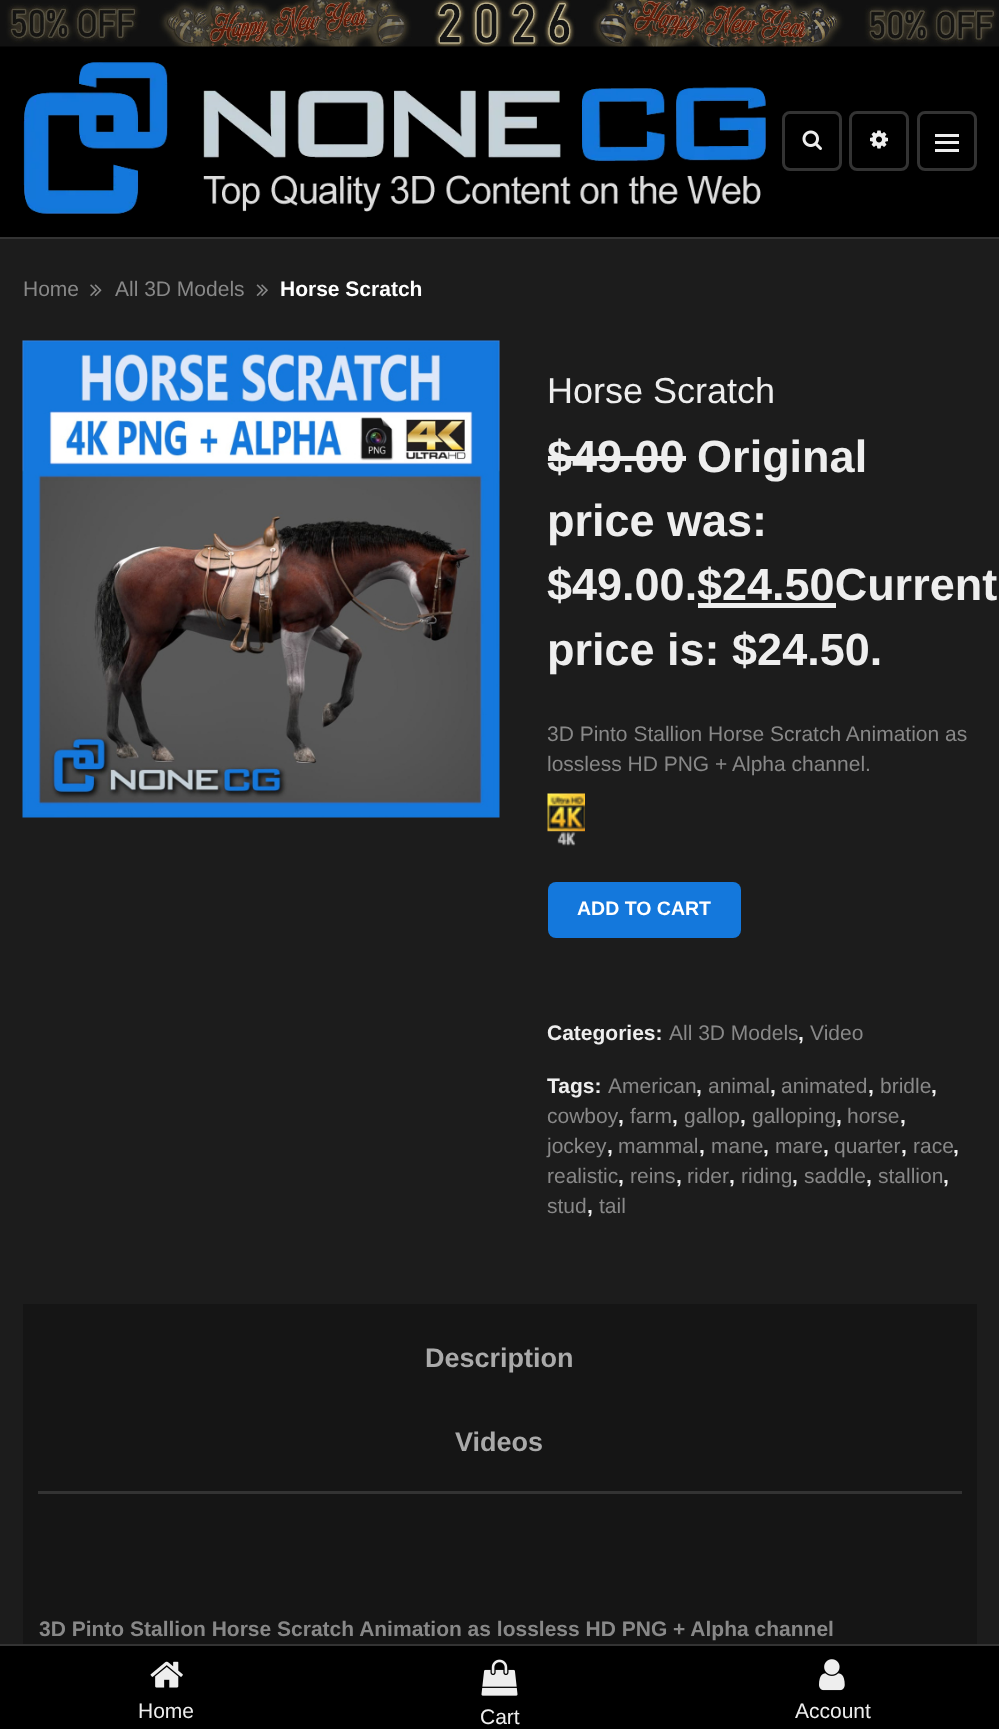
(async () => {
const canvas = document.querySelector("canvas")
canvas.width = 999
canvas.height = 1729
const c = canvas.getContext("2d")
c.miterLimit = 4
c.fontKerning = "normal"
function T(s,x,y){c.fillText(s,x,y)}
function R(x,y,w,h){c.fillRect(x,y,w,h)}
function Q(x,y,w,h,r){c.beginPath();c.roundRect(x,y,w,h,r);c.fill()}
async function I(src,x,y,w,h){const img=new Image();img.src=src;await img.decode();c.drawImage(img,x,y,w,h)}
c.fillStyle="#000"
R(0,0,999,1729)
await I("1.png",0,0,999,47)
c.fillStyle="#333"
R(0,237,999,2)
await I("2.png",23,62,743,152)
c.beginPath()
c.roundRect(783.5,112.5,57,57,6.5)
c.strokeStyle="#333"
c.lineWidth=3
c.stroke()
await I("3.png",802,130,20,20)
c.beginPath()
c.roundRect(850.5,112.5,57,57,6.5)
c.stroke()
await I("4.png",870,130,18,19)
c.beginPath()
c.roundRect(918.5,112.5,57,57,6.5)
c.stroke()
c.fillStyle="#eee"
R(935,134,24,3)
R(935,141,24,3)
R(935,149,24,3)
c.fillStyle="#1c1c1c"
R(0,239,999,1405)
c.font="21px Liberation Sans"
c.fillStyle="#888"
T("Home",23,296)
await I("5.png",90,284,12,12)
T("All 3D Models",115,296)
await I("6.png",256,284,12,12)
c.font="bold 21px Liberation Sans"
c.fillStyle="#fff"
T("Horse Scratch",280,296)
await I("7.png",22,340,478,478)
c.font="36px Liberation Sans"
c.fillStyle="#eee"
T("Horse Scratch",547,403)
c.font="bold 45px Liberation Sans"
T("$",547,472)
R(548,456,25,5)
R(573,456,113,5)
T("49.00 Original",572,472)
T("price was:",547,536)
T("$49.00.",547,600)
R(698,603,138,5)
T("$24.50Current",697,600)
T("price is: $24.50.",547,665)
c.font="21px Liberation Sans"
c.fillStyle="#888"
T("3D Pinto Stallion Horse Scratch Animation as",547,741)
T("lossless HD PNG + Alpha channel.",547,771)
await I("8.png",547,793,38,53)
c.fillStyle="#1478dc"
Q(548,882,193,56,8)
c.font="bold 19.5px Liberation Sans"
c.fillStyle="#fff"
T("ADD TO CART",577,915)
c.font="bold 21px Liberation Sans"
c.fillStyle="#eee"
T("Categories:",547,1040)
c.font="21px Liberation Sans"
c.fillStyle="#888"
T("All 3D Models",669,1040)
c.font="bold 21px Liberation Sans"
c.fillStyle="#eee"
T(",",798,1040)
c.font="21px Liberation Sans"
c.fillStyle="#888"
T("Video",810,1040)
c.font="bold 21px Liberation Sans"
c.fillStyle="#eee"
T("Tags:",547,1093)
c.font="21px Liberation Sans"
c.fillStyle="#888"
T("American",608,1093)
c.font="bold 21px Liberation Sans"
c.fillStyle="#eee"
T(",",696,1093)
c.font="21px Liberation Sans"
c.fillStyle="#888"
T("animal",708,1093)
c.font="bold 21px Liberation Sans"
c.fillStyle="#eee"
T(",",770,1093)
c.font="21px Liberation Sans"
c.fillStyle="#888"
T("animated",781,1093)
c.font="bold 21px Liberation Sans"
c.fillStyle="#eee"
T(",",868,1093)
c.font="21px Liberation Sans"
c.fillStyle="#888"
T("bridle",880,1093)
c.font="bold 21px Liberation Sans"
c.fillStyle="#eee"
T(",",931,1093)
c.font="21px Liberation Sans"
c.fillStyle="#888"
T("cowboy",547,1123)
c.font="bold 21px Liberation Sans"
c.fillStyle="#eee"
T(",",618,1123)
c.font="21px Liberation Sans"
c.fillStyle="#888"
T("farm",630,1123)
c.font="bold 21px Liberation Sans"
c.fillStyle="#eee"
T(",",672,1123)
c.font="21px Liberation Sans"
c.fillStyle="#888"
T("gallop",684,1123)
c.font="bold 21px Liberation Sans"
c.fillStyle="#eee"
T(",",740,1123)
c.font="21px Liberation Sans"
c.fillStyle="#888"
T("galloping",752,1123)
c.font="bold 21px Liberation Sans"
c.fillStyle="#eee"
T(",",836,1123)
c.font="21px Liberation Sans"
c.fillStyle="#888"
T("horse",847,1123)
c.font="bold 21px Liberation Sans"
c.fillStyle="#eee"
T(",",900,1123)
c.font="21px Liberation Sans"
c.fillStyle="#888"
T("jockey",547,1153)
c.font="bold 21px Liberation Sans"
c.fillStyle="#eee"
T(",",607,1153)
c.font="21px Liberation Sans"
c.fillStyle="#888"
T("mammal",618,1153)
c.font="bold 21px Liberation Sans"
c.fillStyle="#eee"
T(",",699,1153)
c.font="21px Liberation Sans"
c.fillStyle="#888"
T("mane",711,1153)
c.font="bold 21px Liberation Sans"
c.fillStyle="#eee"
T(",",763,1153)
c.font="21px Liberation Sans"
c.fillStyle="#888"
T("mare",775,1153)
c.font="bold 21px Liberation Sans"
c.fillStyle="#eee"
T(",",823,1153)
c.font="21px Liberation Sans"
c.fillStyle="#888"
T("quarter",834,1153)
c.font="bold 21px Liberation Sans"
c.fillStyle="#eee"
T(",",901,1153)
c.font="21px Liberation Sans"
c.fillStyle="#888"
T("race",913,1153)
c.font="bold 21px Liberation Sans"
c.fillStyle="#eee"
T(",",953,1153)
c.font="21px Liberation Sans"
c.fillStyle="#888"
T("realistic",547,1183)
c.font="bold 21px Liberation Sans"
c.fillStyle="#eee"
T(",",618,1183)
c.font="21px Liberation Sans"
c.fillStyle="#888"
T("reins",630,1183)
c.font="bold 21px Liberation Sans"
c.fillStyle="#eee"
T(",",676,1183)
c.font="21px Liberation Sans"
c.fillStyle="#888"
T("rider",687,1183)
c.font="bold 21px Liberation Sans"
c.fillStyle="#eee"
T(",",729,1183)
c.font="21px Liberation Sans"
c.fillStyle="#888"
T("riding",741,1183)
c.font="bold 21px Liberation Sans"
c.fillStyle="#eee"
T(",",792,1183)
c.font="21px Liberation Sans"
c.fillStyle="#888"
T("saddle",804,1183)
c.font="bold 21px Liberation Sans"
c.fillStyle="#eee"
T(",",866,1183)
c.font="21px Liberation Sans"
c.fillStyle="#888"
T("stallion",878,1183)
c.font="bold 21px Liberation Sans"
c.fillStyle="#eee"
T(",",943,1183)
c.font="21px Liberation Sans"
c.fillStyle="#888"
T("stud",547,1213)
c.font="bold 21px Liberation Sans"
c.fillStyle="#eee"
T(",",587,1213)
c.font="21px Liberation Sans"
c.fillStyle="#888"
T("tail",599,1213)
c.fillStyle="#151515"
R(23,1304,954,340)
c.fillStyle="#333"
R(38,1491,924,3)
c.font="bold 27px Liberation Sans"
c.fillStyle="#aaa"
T("Description",425,1367)
T("Videos",455,1451)
c.font="bold 21px Liberation Sans"
c.fillStyle="#888"
T("3D Pinto Stallion Horse Scratch Animation as lossless HD PNG + Alpha channel",39,1636)
c.fillStyle="#333"
R(0,1644,999,2)
await I("9.png",150,1661,33,27)
c.font="21px Liberation Sans"
c.fillStyle="#eee"
T("Home",138,1718)
await I("10.png",481,1659,37,37)
T("Cart",480,1724)
await I("11.png",819,1659,26,32)
T("Account",795,1718)
})()
